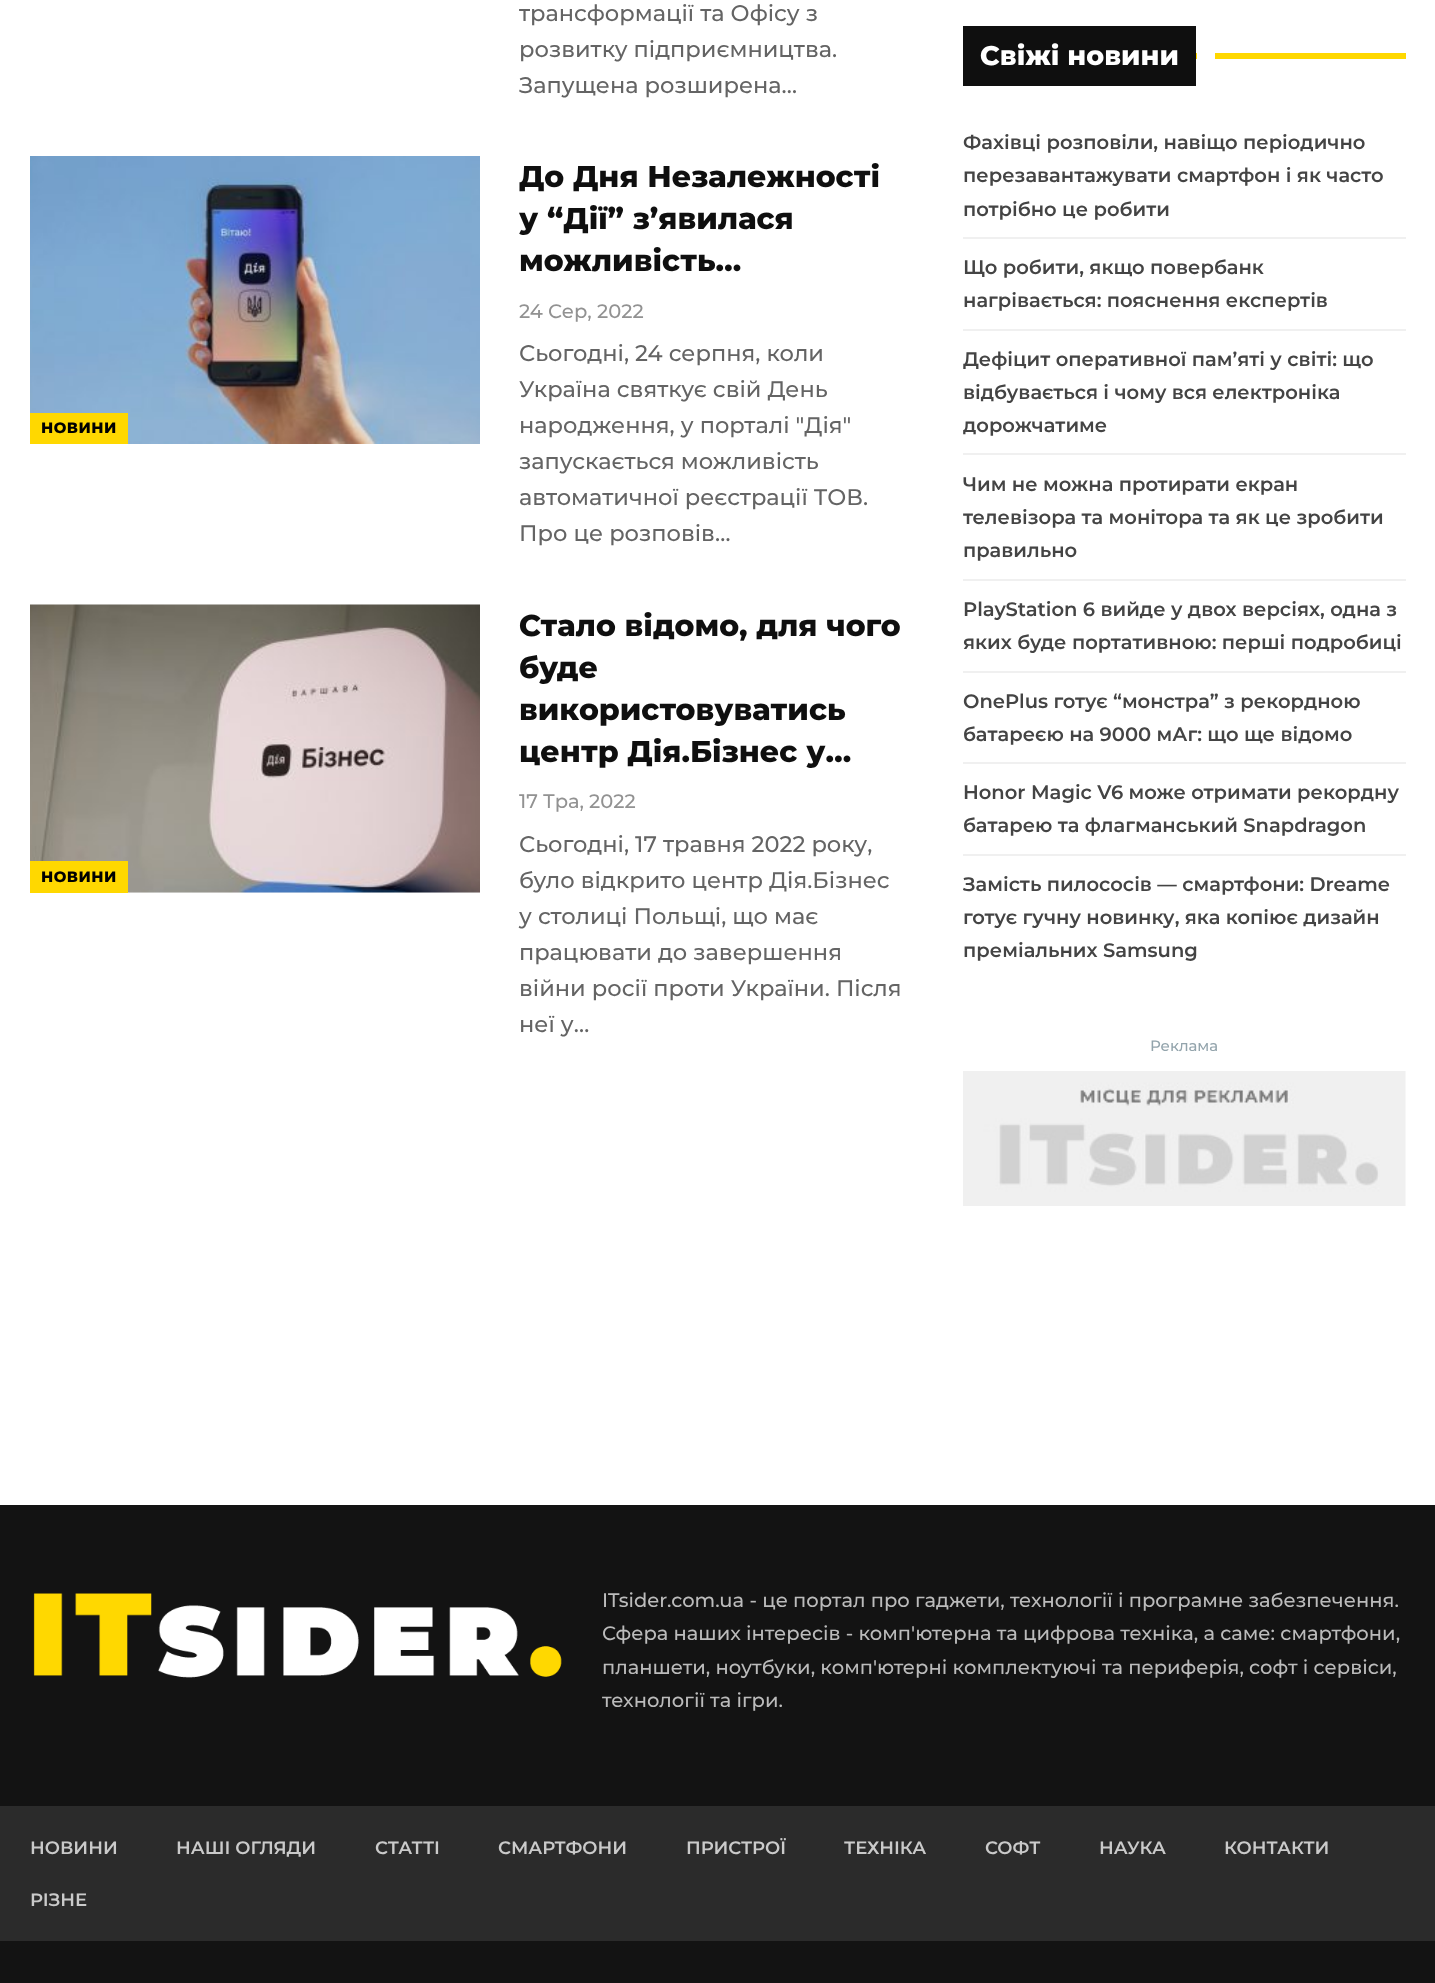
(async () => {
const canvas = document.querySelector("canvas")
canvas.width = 1435
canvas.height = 1983
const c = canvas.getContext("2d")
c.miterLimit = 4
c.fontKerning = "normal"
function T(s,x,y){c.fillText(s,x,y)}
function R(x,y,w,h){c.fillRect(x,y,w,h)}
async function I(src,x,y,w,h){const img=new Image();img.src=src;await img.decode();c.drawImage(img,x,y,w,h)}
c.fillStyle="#fff"
R(0,0,1435,1983)
c.font="500 22.5px Montserrat"
c.fillStyle="#646464"
T("трансформації та Офісу з",519,21)
T("розвитку підприємництва.",519,57)
T("Запущена розширена…",519,93)
c.font="800 30px Montserrat"
c.fillStyle="#0f0f0f"
T("До Дня Незалежності",519,187)
T("у “Дії” з’явилася",519,229)
T("можливість…",519,271)
c.font="500 19.5px Montserrat"
c.fillStyle="#929292"
T("24 Сер, 2022",519,318)
await I("1.png",30,156,450,288)
c.fillStyle="#ffd800"
R(30,413,98,31)
c.letterSpacing="0.5px"
c.font="800 15px Montserrat"
c.fillStyle="#000"
T("НОВИНИ",41,433)
c.letterSpacing="0px"
c.font="500 22.5px Montserrat"
c.fillStyle="#646464"
T("Сьогодні, 24 серпня, коли",519,361)
T("Україна святкує свій День",519,397)
T("народження, у порталі \"Дія\"",519,433)
T("запускається можливість",519,469)
T("автоматичної реєстрації ТОВ.",519,505)
T("Про це розповів…",519,541)
c.font="800 30px Montserrat"
c.fillStyle="#0f0f0f"
T("Стало відомо, для чого",519,636)
T("буде",519,678)
T("використовуватись",519,720)
T("центр Дія.Бізнес у…",519,762)
c.font="500 19.5px Montserrat"
c.fillStyle="#929292"
T("17 Тра, 2022",519,808)
c.fillStyle="#f5f5f5"
R(128,892,352,1)
await I("2.png",30,604,450,289)
c.fillStyle="#ffd800"
R(30,861,98,32)
c.letterSpacing="0.5px"
c.font="800 15px Montserrat"
c.fillStyle="#000"
T("НОВИНИ",41,882)
c.letterSpacing="0px"
c.font="500 22.5px Montserrat"
c.fillStyle="#646464"
T("Сьогодні, 17 травня 2022 року,",519,852)
T("було відкрито центр Дія.Бізнес",519,888)
T("у столиці Польщі, що має",519,924)
T("працювати до завершення",519,960)
T("війни росії проти України. Після",519,996)
T("неї у…",519,1032)
c.fillStyle="#0f0f0f"
R(963,26,233,60)
c.font="800 27px Montserrat"
c.fillStyle="#fff"
T("Свіжі новини",980,65)
c.fillStyle="#ffd800"
R(1196,53,210,6)
c.fillStyle="#fff"
R(1197,53,18,6)
c.fillStyle="#f0f0f0"
R(963,237,443,2)
c.font="600 19.5px Montserrat"
c.fillStyle="#444"
T("Фахівці розповіли, навіщо періодично",963,149)
T("перезавантажувати смартфон і як часто",963,182)
T("потрібно це робити",963,216)
c.fillStyle="#f0f0f0"
R(963,329,443,2)
c.fillStyle="#444"
T("Що робити, якщо повербанк",963,274)
T("нагрівається: пояснення експертів",963,307)
c.fillStyle="#f0f0f0"
R(963,453,443,2)
c.fillStyle="#444"
T("Дефіцит оперативної пам’яті у світі: що",963,366)
T("відбувається і чому вся електроніка",963,399)
T("дорожчатиме",963,432)
c.fillStyle="#f0f0f0"
R(963,579,443,2)
c.fillStyle="#444"
T("Чим не можна протирати екран",963,491)
T("телевізора та монітора та як це зробити",963,524)
T("правильно",963,557)
c.fillStyle="#f0f0f0"
R(963,671,443,2)
c.fillStyle="#444"
T("PlayStation 6 вийде у двох версіях, одна з",963,616)
T("яких буде портативною: перші подробиці",963,649)
c.fillStyle="#f0f0f0"
R(963,762,443,2)
c.fillStyle="#444"
T("OnePlus готує “монстра” з рекордною",963,708)
T("батареєю на 9000 мАг: що ще відомо",963,741)
c.fillStyle="#f0f0f0"
R(963,854,443,2)
c.fillStyle="#444"
T("Honor Magic V6 може отримати рекордну",963,799)
T("батарею та флагманський Snapdragon",963,832)
T("Замість пилососів — смартфони: Dreame",963,891)
T("готує гучну новинку, яка копіює дизайн",963,924)
T("преміальних Samsung",963,957)
await I("3.png",963,1071,443,135)
c.font="500 15px Montserrat"
c.fillStyle="#93a4ac"
T("Реклама",1150,1051)
c.fillStyle="#131313"
R(0,1505,1435,478)
await I("4.png",33,1593,529,85)
c.font="500 19.5px Montserrat"
c.fillStyle="#bbb"
T("ITsider.com.ua - це портал про гаджети, технології і програмне забезпечення.",602,1607)
T("Сфера наших інтересів - комп'ютерна та цифрова техніка, а саме: смартфони,",602,1640)
T("планшети, ноутбуки, комп'ютерні комплектуючі та периферія, софт і сервіси,",602,1674)
T("технології та ігри.",602,1707)
c.fillStyle="#2b2b2b"
R(0,1806,1435,135)
c.font="600 18px Montserrat"
c.fillStyle="#cacaca"
T("НОВИНИ",30,1854)
T("НАШІ ОГЛЯДИ",176,1854)
T("СТАТТІ",375,1854)
T("СМАРТФОНИ",498,1854)
T("ПРИСТРОЇ",686,1854)
T("ТЕХНІКА",844,1854)
T("СОФТ",985,1854)
T("НАУКА",1099,1854)
T("КОНТАКТИ",1224,1854)
T("РІЗНЕ",30,1906)
})()
